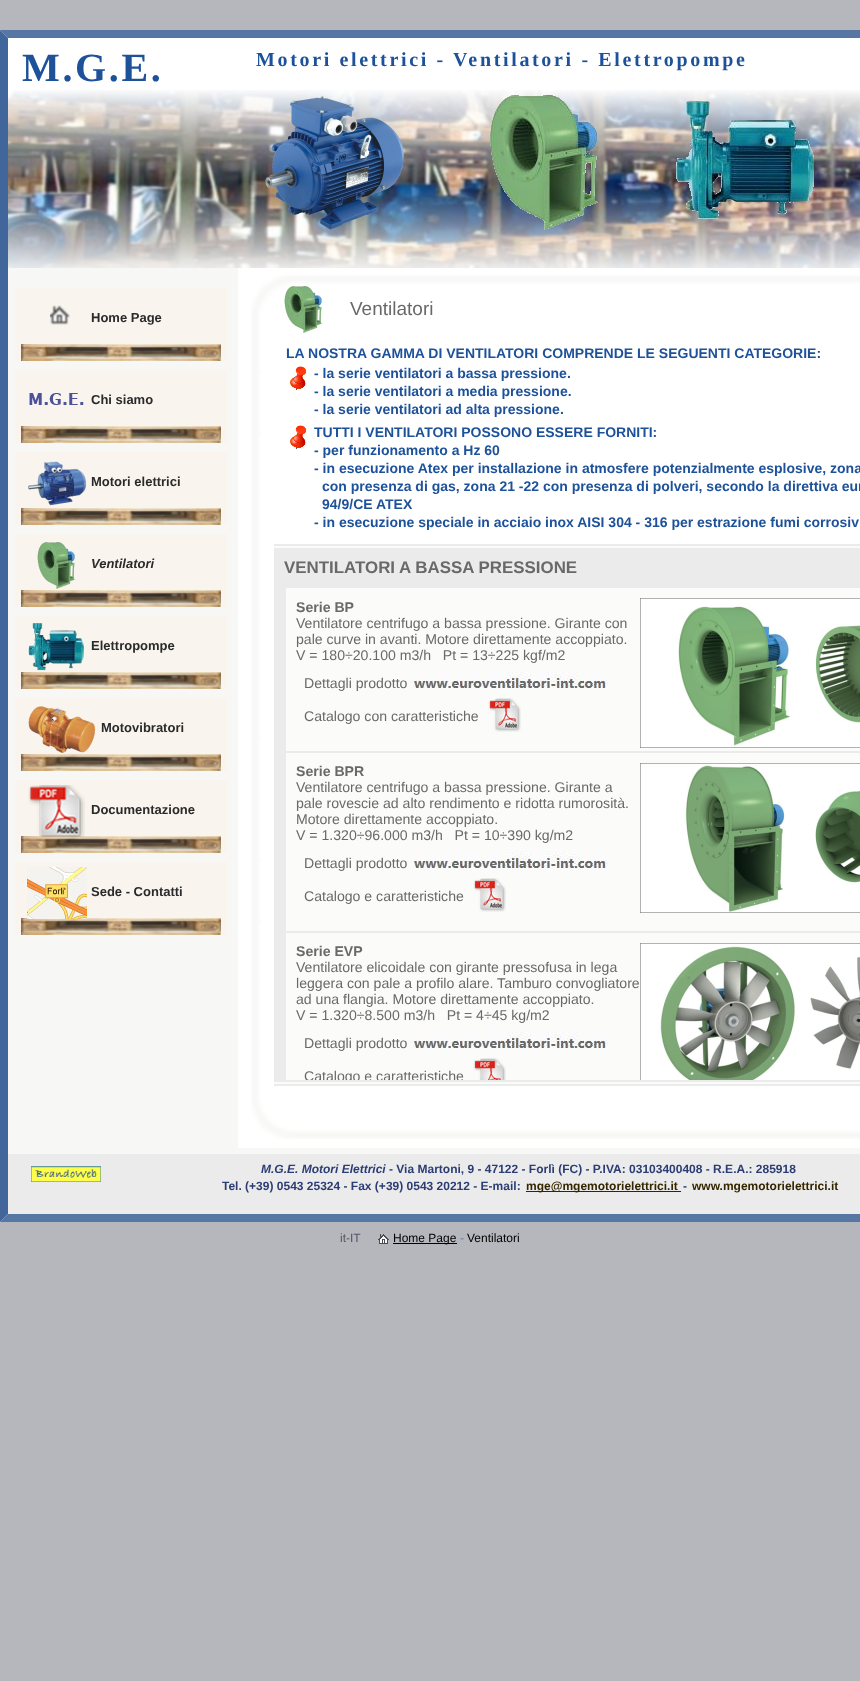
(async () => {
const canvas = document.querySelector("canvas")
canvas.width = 860
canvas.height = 1681
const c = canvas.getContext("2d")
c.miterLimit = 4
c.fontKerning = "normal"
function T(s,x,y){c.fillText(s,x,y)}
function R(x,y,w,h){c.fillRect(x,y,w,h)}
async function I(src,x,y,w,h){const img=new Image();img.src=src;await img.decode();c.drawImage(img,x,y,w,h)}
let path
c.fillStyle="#b6b7bc"
R(0,0,860,1681)
c.fillStyle="#f7f7f6"
R(0,30,860,1192)
c.fillStyle="#5676a3"
path = new Path2D("M0 30h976l-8 8h-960z")
c.fill(path)
path = new Path2D("M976 1222h-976l8-8h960z")
c.fill(path)
c.fillStyle="#41669b"
path = new Path2D("M0 1222v-1192l8 8v1176z")
c.fill(path)
c.fillStyle="#fff"
R(8,38,852,52)
await I("1.png",8,90,852,178)
c.letterSpacing="2.65px"
c.font="bold 40px Liberation Serif"
c.fillStyle="#1d529b"
T("M.G.E.",22,81)
c.font="bold 20px Liberation Serif"
T("Motori elettrici - Ventilatori - Elettropompe",256,66)
await I("2.png",265,96,140,134)
await I("3.png",490,95,108,135)
await I("4.png",676,101,138,118)
c.fillStyle="#f9f5ee"
R(15,288,212,73)
await I("5.png",21,344,200,17)
await I("6.png",50,305,20,20)
c.letterSpacing="0px"
c.font="bold 13px Liberation Sans"
c.fillStyle="#2a2a2c"
T("Home Page",91,322)
c.fillStyle="#f9f5ee"
R(15,370,212,73)
await I("5.png",21,426,200,17)
await I("7.png",29,393,55,12)
c.fillStyle="#2a2a2c"
T("Chi siamo",91,404)
c.fillStyle="#f9f5ee"
R(15,452,212,73)
await I("5.png",21,508,200,17)
await I("8.png",28,461,59,45)
c.fillStyle="#2a2a2c"
T("Motori elettrici",91,486)
c.fillStyle="#f9f5ee"
R(15,534,212,73)
await I("5.png",21,590,200,17)
await I("9.png",37,542,38,47)
c.font="italic bold 13px Liberation Sans"
c.fillStyle="#2a2a2c"
T("Ventilatori",91,568)
c.fillStyle="#f9f5ee"
R(15,616,212,73)
await I("5.png",21,672,200,17)
await I("10.png",28,623,56,48)
c.font="bold 13px Liberation Sans"
c.fillStyle="#2a2a2c"
T("Elettropompe",91,650)
c.fillStyle="#f9f5ee"
R(15,698,212,73)
await I("5.png",21,754,200,17)
await I("11.png",28,706,68,47)
c.fillStyle="#2a2a2c"
T("Motovibratori",101,732)
c.fillStyle="#f9f5ee"
R(15,780,212,73)
await I("5.png",21,836,200,17)
await I("12.png",28,785,57,52)
c.fillStyle="#2a2a2c"
T("Documentazione",91,814)
c.fillStyle="#f9f5ee"
R(15,862,212,73)
await I("5.png",21,918,200,17)
await I("13.png",27,867,60,52)
c.fillStyle="#2a2a2c"
T("Sede - Contatti",91,896)
c.fillStyle="#fff"
R(238,268,622,880)
await I("14.png",251,275,609,58)
await I("15.png",284,286,38,47)
c.font="19px Liberation Sans"
c.fillStyle="#696969"
T("Ventilatori",350,315)
await I("16.png",251,333,10,753)
c.font="bold 14px Liberation Sans"
c.fillStyle="#1d529b"
T("LA NOSTRA GAMMA DI VENTILATORI COMPRENDE LE SEGUENTI CATEGORIE:",286,358)
await I("17.png",290,366,17,24)
T("- la serie ventilatori a bassa pressione.",314,378)
T("- la serie ventilatori a media pressione.",314,396)
T("- la serie ventilatori ad alta pressione.",314,414)
await I("17.png",290,425,17,24)
T("TUTTI I VENTILATORI POSSONO ESSERE FORNITI:",314,437)
T("- per funzionamento a Hz 60",314,455)
T("- in esecuzione Atex per installazione in atmosfere potenzialmente esplosive, zona",314,473)
T("con presenza di gas, zona 21 -22 con presenza di polveri, secondo la direttiva eur",322,491)
T("94/9/CE ATEX",322,509)
T("- in esecuzione speciale in acciaio inox AISI 304 - 316 per estrazione fumi corrosiv",314,527)
c.fillStyle="#fbfbfa"
R(274,546,586,538)
c.fillStyle="#ebebeb"
R(274,544,586,2)
R(274,548,586,40)
R(274,1080,586,2)
R(274,1084,586,2)
c.font="bold 16.9px Liberation Sans"
c.fillStyle="#696969"
T("VENTILATORI A BASSA PRESSIONE",284,573)
c.fillStyle="#ebebeb"
R(274,588,12,163)
c.font="bold 14.1px Liberation Sans"
c.fillStyle="#696969"
T("Serie BP",296,612)
c.font="14.1px Liberation Sans"
T("Ventilatore centrifugo a bassa pressione. Girante con",296,628)
T("pale curve in avanti. Motore direttamente accoppiato.",296,644)
T("V = 180÷20.100 m3/h   Pt = 13÷225 kgf/m2",296,660)
T("Dettagli prodotto",304,688)
await I("18.png",411,672,197,17)
T("Catalogo con caratteristiche",304,721)
await I("19.png",488,698,33,34)
await I("20.png",640,598,220,150)
c.fillStyle="#ebebeb"
R(274,751,586,2)
R(274,753,12,178)
c.font="bold 14.1px Liberation Sans"
c.fillStyle="#696969"
T("Serie BPR",296,776)
c.font="14.1px Liberation Sans"
T("Ventilatore centrifugo a bassa pressione. Girante a",296,792)
T("pale rovescie ad alto rendimento e ridotta rumorosità.",296,808)
T("Motore direttamente accoppiato.",296,824)
T("V = 1.320÷96.000 m3/h   Pt = 10÷390 kg/m2",296,840)
T("Dettagli prodotto",304,868)
await I("18.png",411,852,197,17)
T("Catalogo e caratteristiche",304,901)
await I("19.png",473,878,33,34)
await I("21.png",640,763,220,150)
c.fillStyle="#ebebeb"
R(274,931,586,2)
R(274,933,12,147)
c.font="bold 14.1px Liberation Sans"
c.fillStyle="#696969"
T("Serie EVP",296,956)
c.font="14.1px Liberation Sans"
T("Ventilatore elicoidale con girante pressofusa in lega",296,972)
T("leggera con pale a profilo alare. Tamburo convogliatore",296,988)
T("ad una flangia. Motore direttamente accoppiato.",296,1004)
T("V = 1.320÷8.500 m3/h   Pt = 4÷45 kg/m2",296,1020)
T("Dettagli prodotto",304,1048)
await I("18.png",411,1032,197,17)
c.save()
c.beginPath()
c.rect(274,550,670,530)
c.clip()
T("Catalogo e caratteristiche",304,1081)
c.restore()
await I("22.png",473,1058,33,22)
await I("23.png",640,943,220,137)
await I("24.png",251,1086,609,53)
c.fillStyle="#ebebeb"
R(8,1154,852,60)
await I("25.png",31,1166,70,16)
c.font="italic bold 12px Liberation Sans"
c.fillStyle="#2c3d74"
T("M.G.E. Motori Elettrici",261,1173)
c.font="bold 12px Liberation Sans"
T("- Via Martoni, 9 - 47122 - Forlì (FC) - P.IVA: 03103400408 - R.E.A.: 285918",389,1173)
T("Tel. (+39) 0543 25324 - Fax (+39) 0543 20212 - E-mail:",222,1190)
c.fillStyle="#342600"
R(526,1191,155,1)
T("mge@mgemotorielettrici.it",526,1190)
c.fillStyle="#2c3d74"
T("-",683,1190)
c.fillStyle="#342600"
T("www.mgemotorielettrici.it",692,1190)
c.font="12px Liberation Sans"
c.fillStyle="#4e5766"
T("it-IT",340,1242)
await I("26.png",378,1234,11,10)
c.fillStyle="#000"
R(393,1243,64,1)
T("Home Page",393,1242)
c.fillStyle="#5d7b9d"
T("-",460,1242)
c.fillStyle="#000"
T("Ventilatori",467,1242)
})()
